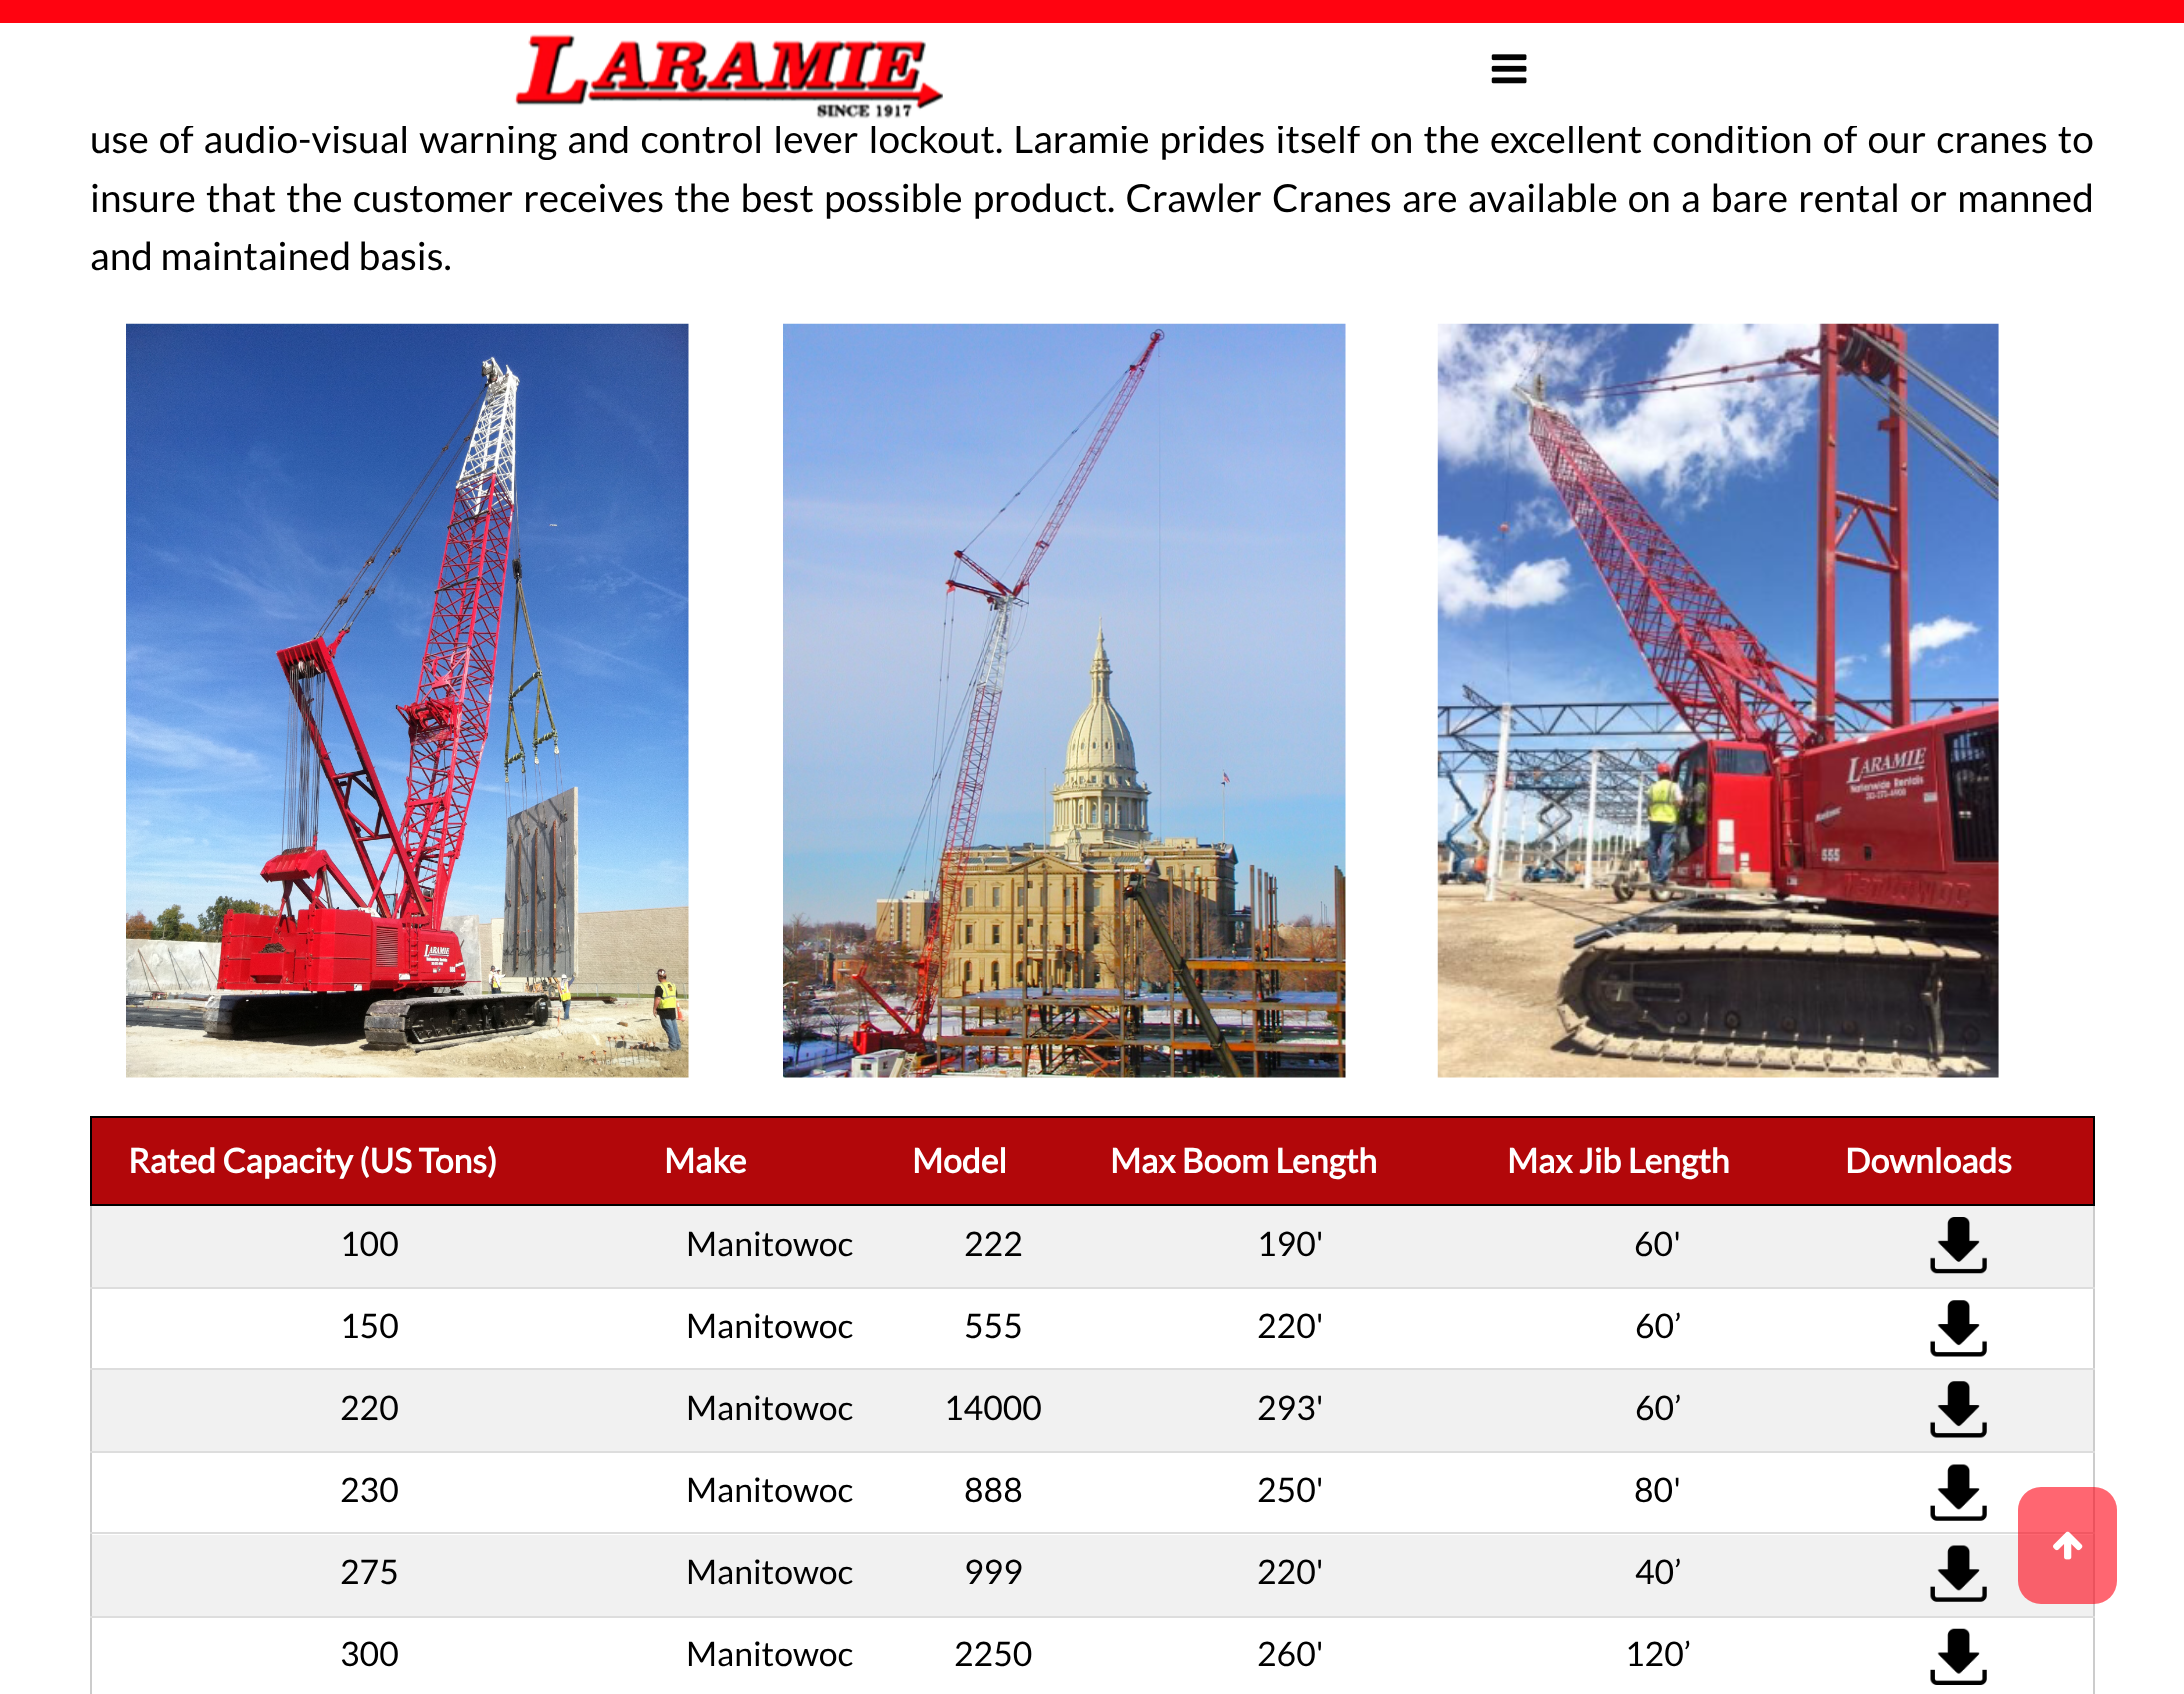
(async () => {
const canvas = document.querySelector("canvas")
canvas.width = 2184
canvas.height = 1694
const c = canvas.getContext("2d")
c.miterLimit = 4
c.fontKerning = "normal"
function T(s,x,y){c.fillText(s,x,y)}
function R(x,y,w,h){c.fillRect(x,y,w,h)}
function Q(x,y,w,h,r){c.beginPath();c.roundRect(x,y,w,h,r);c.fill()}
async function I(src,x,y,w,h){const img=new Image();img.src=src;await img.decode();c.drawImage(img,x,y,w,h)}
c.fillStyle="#fff"
R(0,0,2184,1694)
c.wordSpacing="2.6px"
c.font="38.8px Lato"
c.fillStyle="#000"
T("use of audio-visual warning and control lever lockout. Laramie prides itself on the excellent condition of our cranes to",90,153)
c.fillStyle="#fffffffc"
R(1569,124,289,2)
c.fillStyle="#ff0310"
R(0,0,2184,23)
c.fillStyle="#fff"
R(186,124,1259,2)
await I("1.png",514,34,429,85)
await I("2.png",1491,54,36,30)
c.fillStyle="#000"
T("insure that the customer receives the best possible product. Crawler Cranes are available on a bare rental or manned",90,212)
c.wordSpacing="0px"
T("and maintained basis.",90,270)
await I("3.png",126,323,563,755)
await I("4.png",783,323,563,755)
await I("5.png",1437,323,562,755)
c.fillStyle="#ccc"
R(2093,1206,2,488)
R(90,1206,2,488)
c.fillStyle="#000"
R(90,1116,2005,2)
R(2093,1116,2,90)
R(90,1204,2005,2)
R(90,1116,2,90)
c.fillStyle="#b2070a"
R(92,1118,2001,86)
c.font="bold 33.75px Lato"
c.fillStyle="#fff"
T("Rated Capacity (US Tons)",128,1173)
T("Make",664,1173)
T("Model",912,1173)
T("Max Boom Length",1110,1173)
T("Max Jib Length",1507,1173)
T("Downloads",1845,1173)
c.fillStyle="#f1f1f1"
R(92,1206,2001,81)
c.fillStyle="#ddd"
R(90,1287,2005,2)
c.font="33.75px Lato"
c.fillStyle="#000"
T("100",340,1256)
T("Manitowoc",686,1256)
T("222",964,1256)
T("190'",1257,1256)
T("60'",1634,1256)
await I("6.png",1930,1217,57,57)
c.fillStyle="#ddd"
R(90,1368,2005,2)
c.fillStyle="#000"
T("150",340,1338)
T("Manitowoc",686,1338)
T("555",964,1338)
T("220'",1257,1338)
T("60’",1635,1338)
await I("7.png",1930,1300,57,57)
c.fillStyle="#f1f1f1"
R(92,1370,2001,81)
c.fillStyle="#ddd"
R(90,1451,2005,2)
c.fillStyle="#000"
T("220",340,1420)
T("Manitowoc",686,1420)
T("14000",944,1420)
T("293'",1257,1420)
T("60’",1635,1420)
await I("8.png",1930,1381,57,57)
c.fillStyle="#ddd"
R(90,1532,2005,2)
c.fillStyle="#000"
T("230",340,1502)
T("Manitowoc",686,1502)
T("888",964,1502)
T("250'",1257,1502)
T("80'",1634,1502)
await I("9.png",1930,1464,57,57)
c.fillStyle="#f1f1f1"
R(92,1535,2001,81)
c.fillStyle="#ddd"
R(90,1616,2005,2)
c.fillStyle="#000"
T("275",340,1584)
T("Manitowoc",686,1584)
T("999",964,1584)
T("220'",1257,1584)
T("40’",1635,1584)
await I("10.png",1930,1545,57,57)
T("300",340,1666)
T("Manitowoc",686,1666)
T("2250",954,1666)
T("260'",1257,1666)
T("120’",1625,1666)
await I("11.png",1930,1628,57,57)
c.fillStyle="#ff001299"
Q(2018,1487,99,117,23)
await I("12.png",2053,1531,30,29)
})()
